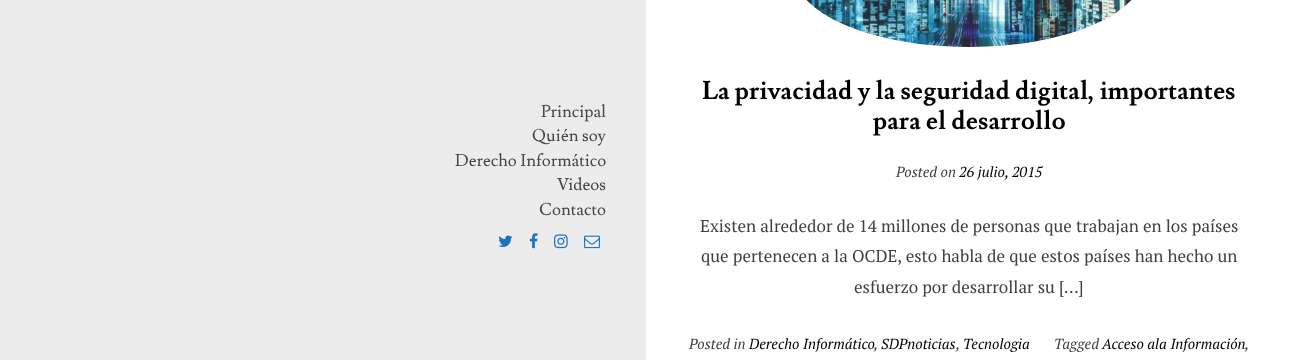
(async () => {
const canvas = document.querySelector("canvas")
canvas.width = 1292
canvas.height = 360
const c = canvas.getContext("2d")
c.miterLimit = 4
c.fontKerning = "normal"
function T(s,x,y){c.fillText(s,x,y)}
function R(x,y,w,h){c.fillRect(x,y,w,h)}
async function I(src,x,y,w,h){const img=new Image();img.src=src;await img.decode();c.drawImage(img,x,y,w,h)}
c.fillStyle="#fff"
R(0,0,1292,360)
c.fillStyle="#ececec"
R(0,0,646,360)
c.font="17px Lusitana"
c.fillStyle="#494949"
T("Principal",541,117)
T("Quién soy",532,141)
T("Derecho Informático",455,166)
T("Videos",557,190)
T("Contacto",539,215)
await I("1.png",498,235,15,12)
await I("2.png",529,233,9,16)
await I("3.png",554,234,14,15)
await I("4.png",584,235,16,14)
await I("5.png",806,0,326,47)
c.font="bold 25.5px Lusitana"
c.fillStyle="#000"
T("La privacidad y la seguridad digital, importantes",702,99)
T("para el desarrollo",873,129)
c.font="italic 14.5px PT Serif"
c.fillStyle="#404040"
T("Posted on",896,177)
c.fillStyle="#000"
T("26 julio, 2015",959,177)
c.font="17px PT Serif"
c.fillStyle="#404040"
T("Existen alrededor de 14 millones de personas que trabajan en los países",700,232)
T("que pertenecen a la OCDE, esto habla de que estos países han hecho un",701,262)
T("esfuerzo por desarrollar su […]",854,293)
c.font="italic 14.5px PT Serif"
T("Posted in",689,349)
c.fillStyle="#000"
T("Derecho Informático",749,349)
c.fillStyle="#404040"
T(",",874,349)
c.fillStyle="#000"
T("SDPnoticias",881,349)
c.fillStyle="#404040"
T(",",956,349)
c.fillStyle="#000"
T("Tecnologia",963,349)
c.fillStyle="#404040"
T("Tagged",1054,349)
c.fillStyle="#000"
T("Acceso ala Información",1102,349)
c.fillStyle="#404040"
T(",",1245,349)
})()
